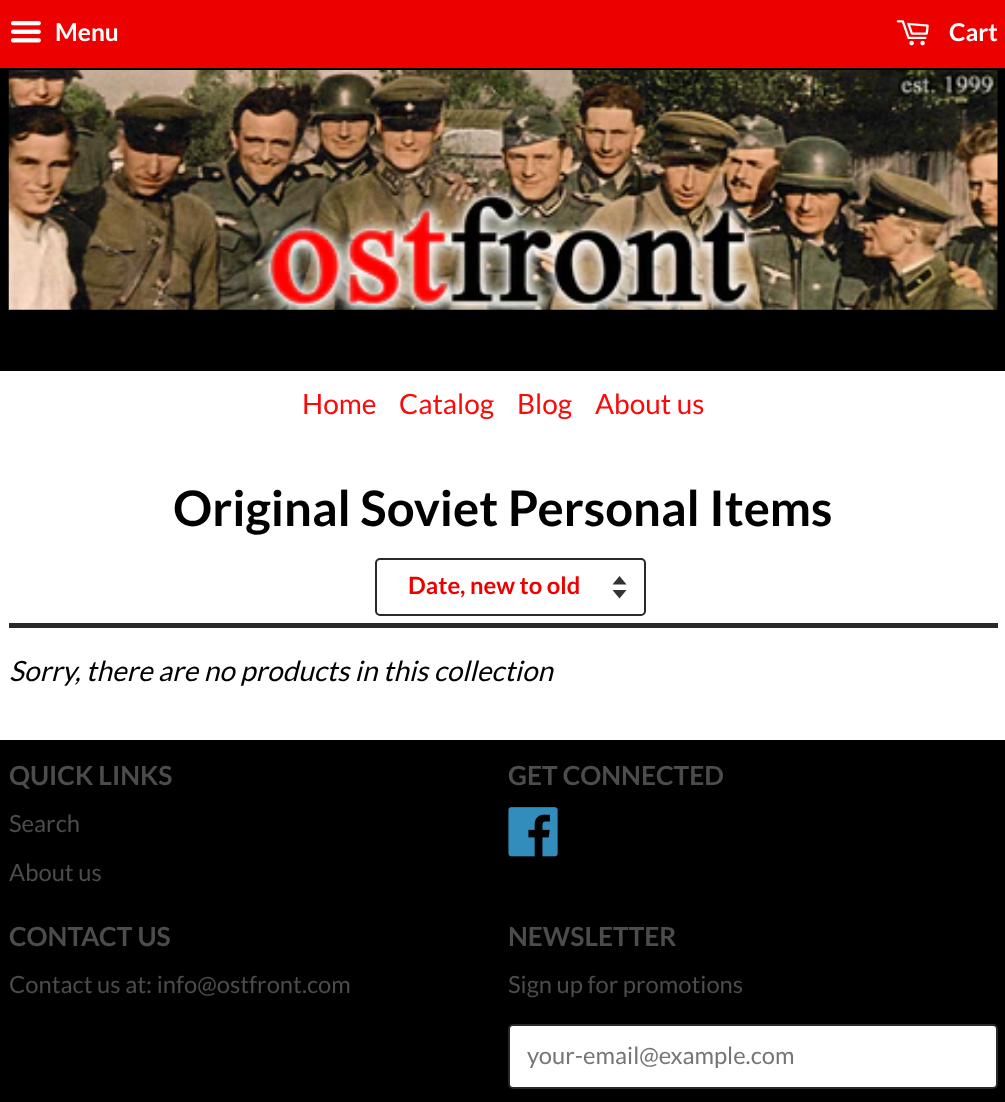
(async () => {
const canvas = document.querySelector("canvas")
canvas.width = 1005
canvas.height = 1102
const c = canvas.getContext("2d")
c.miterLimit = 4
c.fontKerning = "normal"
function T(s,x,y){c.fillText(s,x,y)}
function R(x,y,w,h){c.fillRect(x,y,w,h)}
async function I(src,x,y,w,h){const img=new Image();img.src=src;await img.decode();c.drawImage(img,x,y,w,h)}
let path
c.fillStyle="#fff"
R(0,0,1005,1102)
c.fillStyle="#ec0000"
R(0,0,1005,68)
await I("1.png",10,21,31,22)
c.font="bold 24.5px Lato"
c.fillStyle="#fff"
T("Menu",55,41)
await I("2.png",896,20,33,26)
T("Cart",949,41)
c.fillStyle="#000"
R(0,68,1005,303)
await I("3.png",8,70,990,240)
c.font="28px Lato"
c.fillStyle="#fc0909"
T("Home",302,414)
T("Catalog",399,414)
T("Blog",517,414)
T("About us",595,414)
c.fillStyle="#292929"
R(9,623,989,5)
c.font="bold 49px Lato"
c.fillStyle="#000"
T("Original Soviet Personal Items",173,526)
c.fillStyle="#333"
path = new Path2D("M612.5 590l7 8.5l7-8.5zm7-14l-7 8.5h14z")
c.fill(path)
c.beginPath()
c.roundRect(376,559,269,56,4)
c.strokeStyle="#292929"
c.lineWidth=2
c.stroke()
c.font="bold 23.75px Lato"
c.fillStyle="#e00"
T("Date, new to old",408,594)
c.font="italic 28px Lato"
c.fillStyle="#000"
T("Sorry, there are no products in this collection",9,681)
R(0,740,1005,362)
c.font="bold 26.25px Lato"
c.fillStyle="#4c4c4c"
T("QUICK LINKS",9,785)
c.font="23.75px Lato"
T("Search",9,832)
T("About us",9,881)
c.font="bold 26.25px Lato"
T("GET CONNECTED",508,785)
await I("4.png",508,807,50,50)
T("CONTACT US",9,946)
c.font="23.75px Lato"
T("Contact us at: info@ostfront.com",9,993)
c.font="bold 26.25px Lato"
T("NEWSLETTER",508,946)
c.font="23.75px Lato"
T("Sign up for promotions",508,993)
c.fillStyle="#fff"
c.beginPath()
c.roundRect(509,1025,488,63,4)
c.fill()
c.stroke()
c.fillStyle="#757575"
T("your-email@example.com",527,1064)
})()
